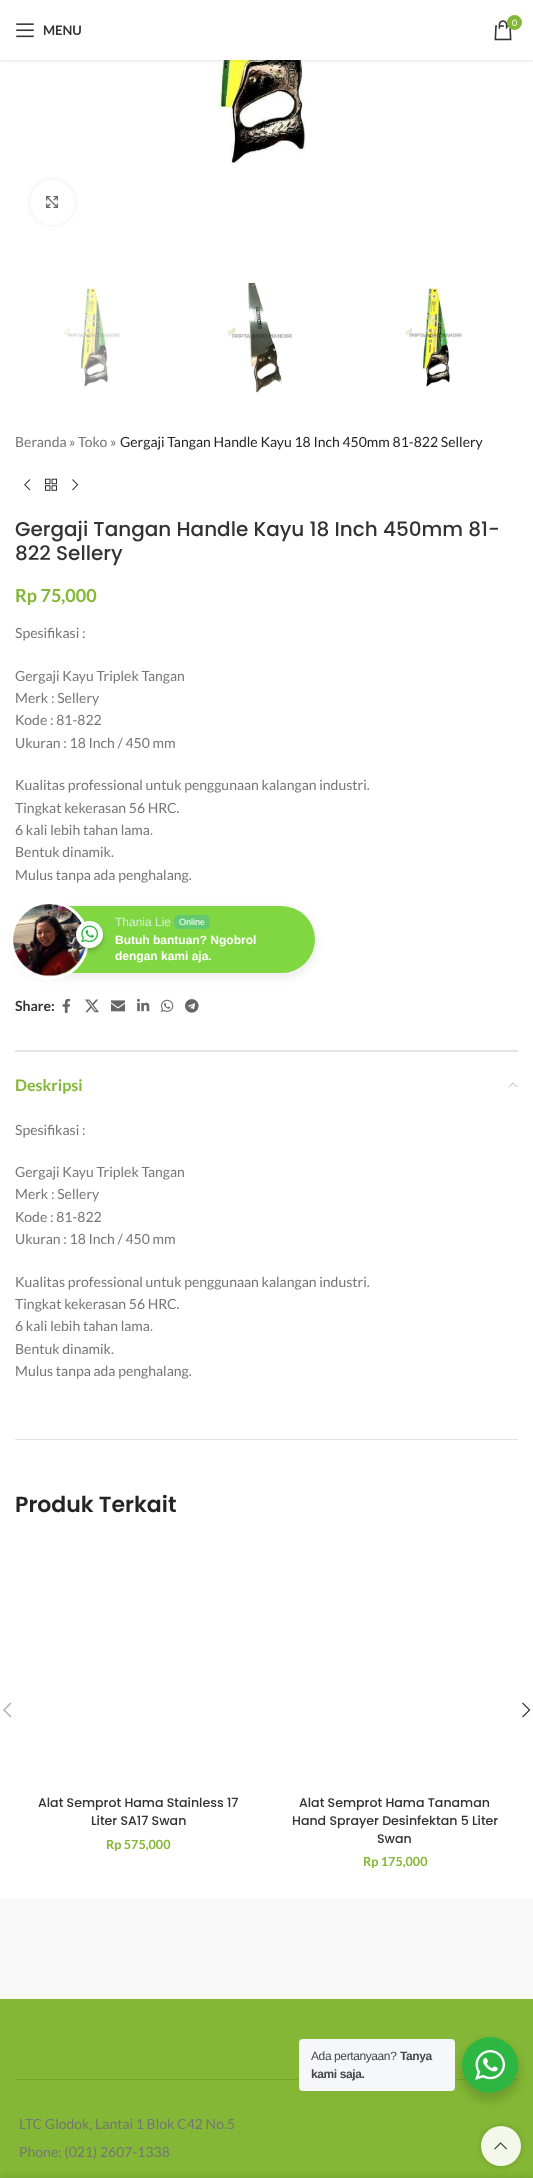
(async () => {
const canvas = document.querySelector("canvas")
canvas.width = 533
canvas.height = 2178
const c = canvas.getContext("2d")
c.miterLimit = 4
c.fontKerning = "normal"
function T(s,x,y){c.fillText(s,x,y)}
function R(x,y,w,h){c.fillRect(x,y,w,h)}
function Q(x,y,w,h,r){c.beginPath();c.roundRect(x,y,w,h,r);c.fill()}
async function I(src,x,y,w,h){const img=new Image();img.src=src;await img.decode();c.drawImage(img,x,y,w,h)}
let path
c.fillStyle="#fff"
R(0,0,533,2178)
await I("3.png",167,60,176,104)
c.fillStyle="#0000001a"
c.filter="blur(1.5px)"
c.beginPath()
c.rect(0,1,533,60)
c.fill()
c.filter="none"
c.fillStyle="#fff"
R(0,0,533,60)
await I("1.png",494,20,18,21)
c.fillStyle="#83b735"
c.beginPath()
c.arc(514.5,22.5,7.5,0,7)
c.fill()
c.font="9px Lato"
c.fillStyle="#fff"
T("0",512,26)
await I("2.png",16,23,18,15)
c.font="bold 13px Lato"
c.fillStyle="#333"
T("MENU",43,35)
c.fillStyle="#00000014"
c.filter="blur(2.5px)"
c.beginPath()
c.roundRect(30,180,45,45,22.5)
c.fill()
c.filter="none"
c.fillStyle="#fff"
c.beginPath()
c.arc(52.5,202.5,22.5,0,7)
c.fill()
await I("4.png",46,196,12,12)
await I("5.png",63,288,57,99)
await I("6.png",227,282,65,111)
await I("7.png",405,288,57,99)
c.font="14px Lato"
c.fillStyle="#767676"
T("Beranda",15,447)
T("»",69,447)
T("Toko",78,447)
T("»",110,447)
c.fillStyle="#242424"
T("Gergaji Tangan Handle Kayu 18 Inch 450mm 81-822 Sellery",120,447)
await I("8.png",24,479,7,12)
await I("9.png",45,478,12,13)
await I("10.png",72,479,7,12)
c.font="500 20px Poppins"
c.fillStyle="#333"
T("Gergaji Tangan Handle Kayu 18 Inch 450mm 81-",15,536)
T("822 Sellery",15,560)
c.font="bold 18px Lato"
c.fillStyle="#83b735"
T("Rp 75,000",15,602)
c.font="14px Lato"
c.fillStyle="#767676"
T("Spesifikasi :",15,638)
T("Gergaji Kayu Triplek Tangan",15,681)
T("Merk : Sellery",15,703)
T("Kode : 81-822",15,725)
T("Ukuran : 18 Inch / 450 mm",15,748)
T("Kualitas professional untuk penggunaan kalangan industri.",15,790)
T("Tingkat kekerasan 56 HRC.",15,813)
T("6 kali lebih tahan lama.",15,835)
T("Bentuk dinamik.",15,857)
T("Mulus tanpa ada penghalang.",15,880)
c.fillStyle="#20202517"
c.filter="blur(4px)"
c.beginPath()
c.roundRect(14,909,302,69,34.5)
c.fill()
c.filter="none"
c.fillStyle="#81d742"
Q(15,906,300,67,33.5)
await I("11.png",13,904,73,72)
c.beginPath()
c.arc(49.5,940.5,38,0,7)
c.strokeStyle="#fff"
c.lineWidth=3
c.stroke()
c.fillStyle="#27262642"
c.filter="blur(2px)"
c.beginPath()
c.roundRect(76,924,27,27,13.5)
c.fill()
c.filter="none"
c.fillStyle="#fff"
c.beginPath()
c.arc(89.5,934.5,13.5,0,7)
c.fill()
await I("12.png",81,925,17,17)
c.font="12px Liberation Sans"
c.fillStyle="#d5f0d9"
T("Thania Lie",115,926)
c.fillStyle="#62c971"
Q(174,915,36,14,5)
c.font="9px Liberation Sans"
c.fillStyle="#fff"
T("Online",179,925)
c.font="bold 12px Liberation Sans"
T("Butuh bantuan? Ngobrol",115,944)
T("dengan kami aja.",115,960)
c.font="bold 14px Lato"
c.fillStyle="#333"
T("Share:",15,1011)
await I("13.png",62,998,9,15)
await I("14.png",85,999,14,14)
await I("15.png",111,1000,14,12)
await I("16.png",137,998,13,14)
await I("17.png",161,999,13,13)
await I("18.png",185,999,14,14)
c.fillStyle="#e4e4e4"
R(15,1050,503,2)
R(15,1439,503,1)
c.font="bold 16px Lato"
c.fillStyle="#83b735"
T("Deskripsi",15,1091)
await I("19.png",508,1082,10,6)
c.font="14px Lato"
c.fillStyle="#767676"
T("Spesifikasi :",15,1135)
T("Gergaji Kayu Triplek Tangan",15,1177)
T("Merk : Sellery",15,1199)
T("Kode : 81-822",15,1222)
T("Ukuran : 18 Inch / 450 mm",15,1244)
T("Kualitas professional untuk penggunaan kalangan industri.",15,1287)
T("Tingkat kekerasan 56 HRC.",15,1309)
T("6 kali lebih tahan lama.",15,1331)
T("Bentuk dinamik.",15,1354)
T("Mulus tanpa ada penghalang.",15,1376)
c.font="600 22px Poppins"
c.fillStyle="#242424"
T("Produk Terkait",15,1512)
await I("20.png",3,1702,9,16)
await I("21.png",522,1702,9,16)
c.font="500 12.6px Poppins"
c.fillStyle="#333"
T("Alat Semprot Hama Stainless 17",38,1807)
T("Liter SA17 Swan",91,1825)
c.font="bold 12.6px Lato"
c.fillStyle="#83b735"
T("Rp 575,000",106,1849)
c.font="500 12.6px Poppins"
c.fillStyle="#333"
T("Alat Semprot Hama Tanaman",299,1807)
T("Hand Sprayer Desinfektan 5 Liter",292,1825)
T("Swan",377,1843)
c.font="bold 12.6px Lato"
c.fillStyle="#83b735"
T("Rp 175,000",363,1866)
c.fillStyle="#f9f9f9"
R(0,1899,533,100)
c.fillStyle="#83b735"
R(0,1999,533,179)
c.fillStyle="#75a42f"
R(15,2079,503,1)
c.font="14px Lato"
c.fillStyle="#767676"
T("LTC Glodok, Lantai 1 Blok C42 No.5",19,2129)
T("Phone: (021) 2607-1338",19,2157)
c.fillStyle="#00000024"
c.filter="blur(4px)"
c.beginPath()
c.roundRect(460,2041,60,60,30)
c.fill()
c.filter="none"
c.fillStyle="#f5f7f9"
Q(299,2039,156,52,4)
c.letterSpacing="-0.4px"
c.font="12px Liberation Sans"
c.fillStyle="#43474e"
T("Ada pertanyaan?",311,2060)
c.font="bold 12px Liberation Sans"
T("Tanya",400,2060)
T("kami saja.",311,2078)
c.fillStyle="#2db742"
c.beginPath()
c.arc(490,2065,28,0,7)
c.fill()
await I("22.png",475,2050,30,30)
c.save()
path = new Path2D("M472 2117h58v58h-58zm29 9c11 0 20 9 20 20c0 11-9 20-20 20c-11 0-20-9-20-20c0-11 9-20 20-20z")
c.clip(path,"evenodd")
c.fillStyle="#0000002b"
c.filter="blur(2.5px)"
c.beginPath()
c.roundRect(481,2126,40,40,20)
c.fill()
c.filter="none"
c.restore()
c.fillStyle="#ffffffe6"
c.beginPath()
c.arc(501,2146,20,0,7)
c.fill()
await I("23.png",494,2142,13,8)
c.fillStyle="#00000024"
c.filter="blur(4.5px)"
c.beginPath()
c.rect(0,2178,533,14)
c.fill()
c.filter="none"
})()
